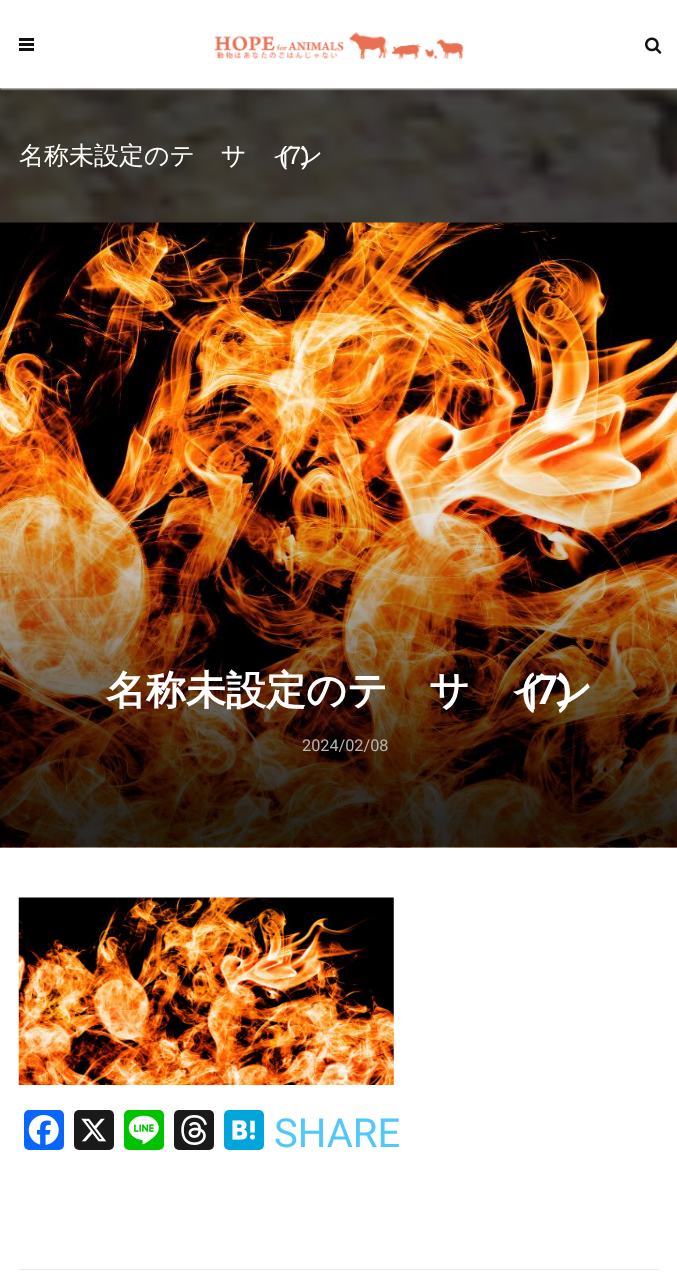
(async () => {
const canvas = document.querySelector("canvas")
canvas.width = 677
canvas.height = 1285
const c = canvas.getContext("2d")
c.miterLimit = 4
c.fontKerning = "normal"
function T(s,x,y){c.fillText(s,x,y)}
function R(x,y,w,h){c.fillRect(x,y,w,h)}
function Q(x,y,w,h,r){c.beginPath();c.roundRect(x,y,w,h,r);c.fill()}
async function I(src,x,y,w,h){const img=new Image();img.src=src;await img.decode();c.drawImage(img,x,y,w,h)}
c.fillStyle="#fff"
R(0,0,677,1285)
await I("3.png",0,88,677,135)
c.fillStyle="#eaeaea"
c.filter="blur(1px)"
c.beginPath()
c.rect(0,1,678,88)
c.fill()
c.filter="none"
c.fillStyle="#fff"
R(0,0,677,88)
c.fillStyle="#111"
R(19,38,15,3)
R(19,43,15,3)
R(19,48,15,3)
await I("1.png",214,32,250,28)
await I("2.png",645,37,17,17)
c.font="500 25px WenQuanYi Zen Hei"
c.fillStyle="#fff"
T("名称未設定のデザイン",19,164)
c.font="25px Liberation Sans"
T("(7)",279,164)
await I("4.png",0,222,677,626)
await I("5.png",0,477,677,371)
c.font="bold 40px WenQuanYi Zen Hei"
T("名称未設定のデザイン",106,704)
c.font="bold 40px Roboto"
T("(7)",521,704)
c.font="16.25px Roboto"
c.fillStyle="#b5b5b5"
T("2024/02/08",302,751)
await I("6.png",18,897,376,188)
c.fillStyle="#0866ff"
Q(24,1110,40,40,5)
await I("7.png",28,1115,31,30)
c.fillStyle="#1a1a1a"
Q(74,1110,40,40,5)
await I("8.png",81,1118,26,24)
c.fillStyle="#00c300"
Q(124,1110,40,40,5)
await I("9.png",128,1115,31,30)
c.fillStyle="#1a1a1a"
Q(174,1110,40,40,5)
await I("10.png",181,1115,26,30)
c.fillStyle="#00a6db"
Q(224,1110,40,40,5)
await I("11.png",232,1120,23,20)
c.font="40px Roboto"
c.fillStyle="#51c8fa"
T("SHARE",274,1147)
c.fillStyle="#eaeaea"
R(19,1269,640,1)
})()
